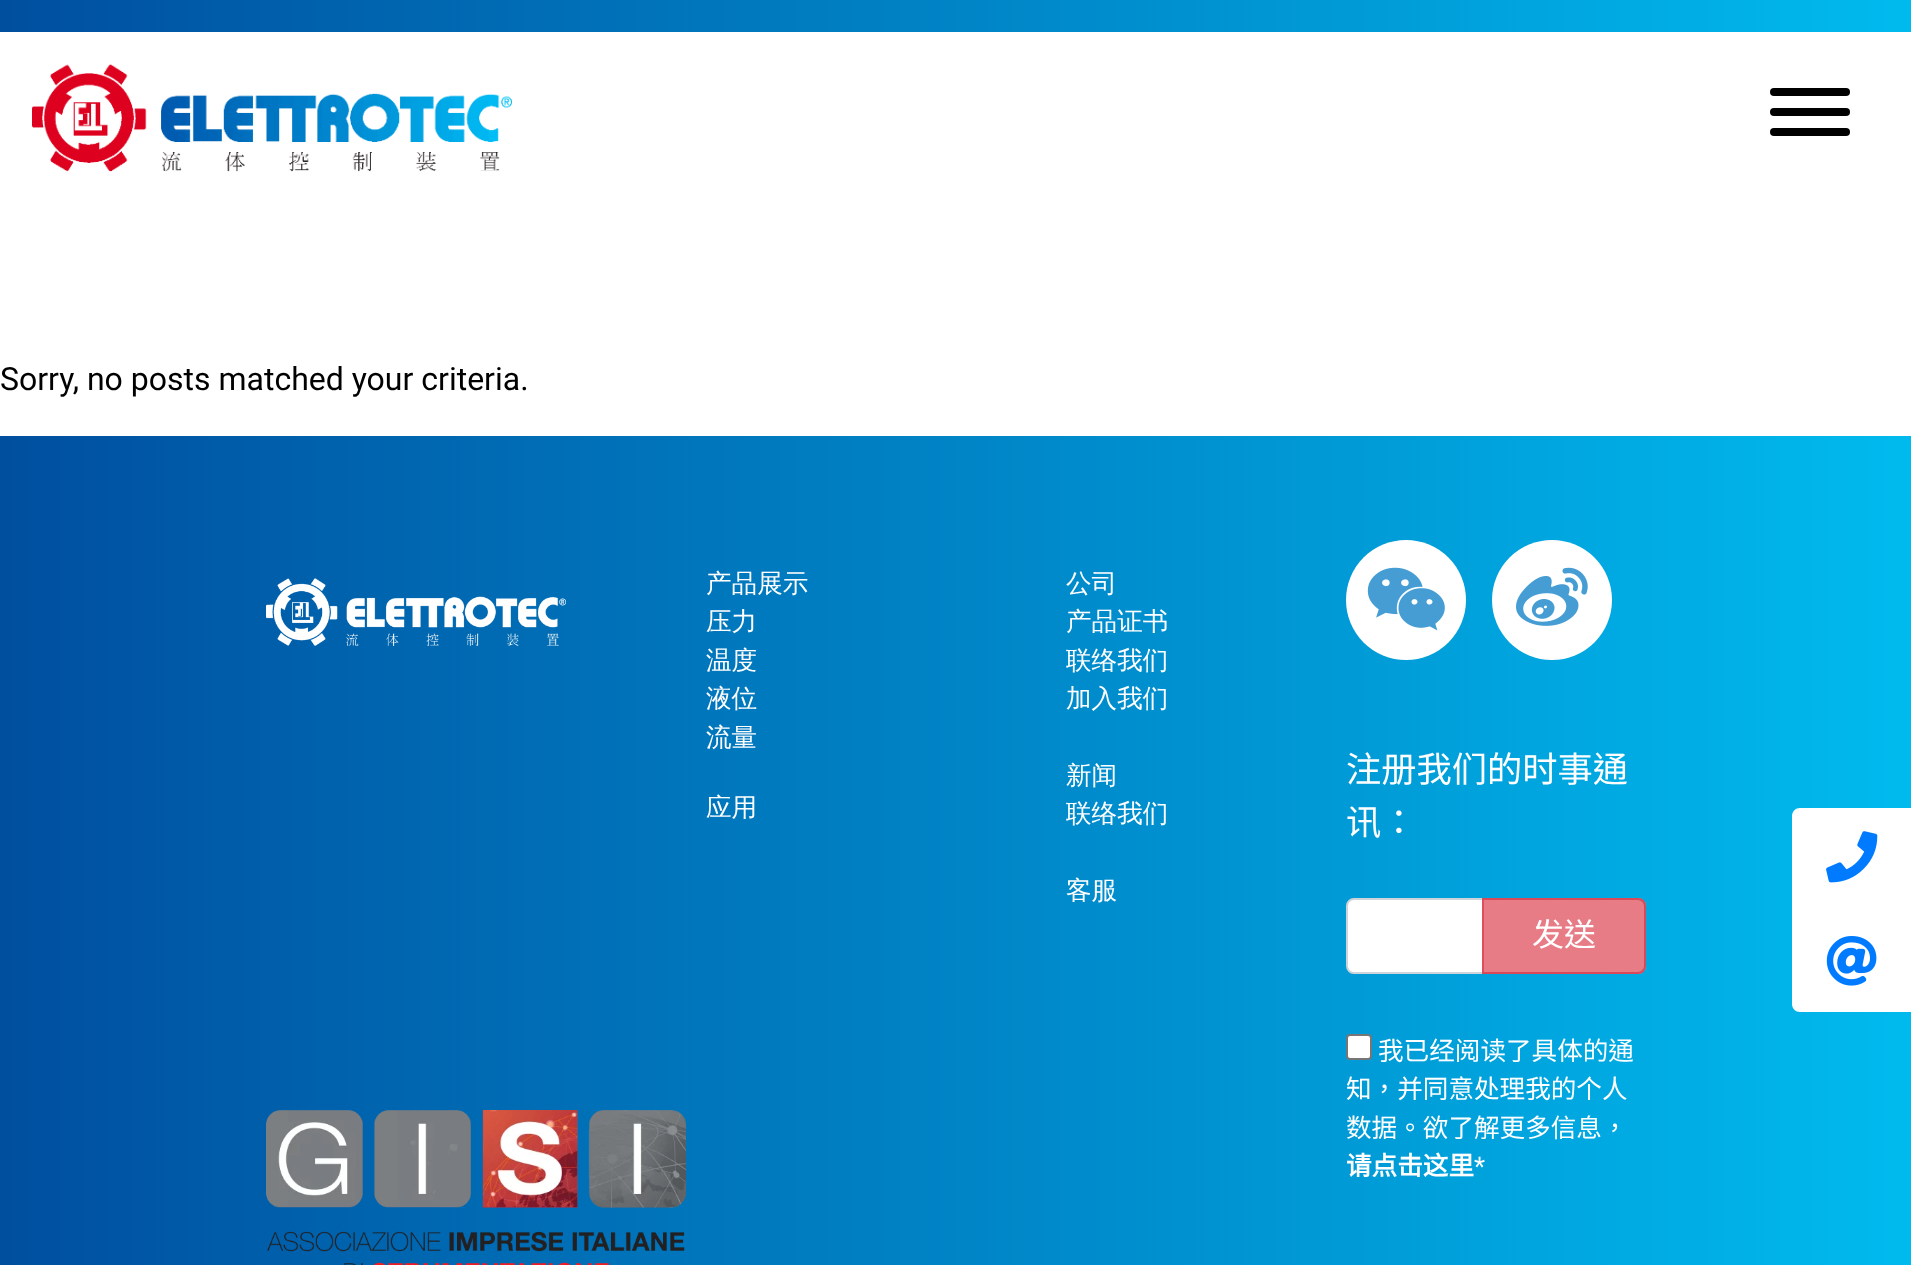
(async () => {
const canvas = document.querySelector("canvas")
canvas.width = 1911
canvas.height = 1265
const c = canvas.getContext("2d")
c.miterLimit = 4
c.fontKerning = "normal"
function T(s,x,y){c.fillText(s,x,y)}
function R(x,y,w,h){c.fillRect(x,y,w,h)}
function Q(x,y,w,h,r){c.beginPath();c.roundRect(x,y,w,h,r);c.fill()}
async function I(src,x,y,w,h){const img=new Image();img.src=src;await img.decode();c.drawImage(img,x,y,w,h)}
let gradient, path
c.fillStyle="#fff"
R(0,0,1911,1265)
gradient = c.createLinearGradient(0,102,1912,102)
gradient.addColorStop(0,"#004f9f")
gradient.addColorStop(1,"#00baee")
c.fillStyle = gradient
R(0,0,1911,32)
await I("1.png",32,64,480,108)
c.fillStyle="#000"
Q(1770,128,80,8,4)
Q(1770,88,80,8,4)
Q(1770,108,80,8,4)
c.font="32px Roboto"
T("Sorry, no posts matched your criteria.",0,390)
gradient = c.createLinearGradient(0,970,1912,970)
gradient.addColorStop(0,"#004f9f")
gradient.addColorStop(1,"#00baee")
c.fillStyle = gradient
R(0,436,1911,829)
await I("2.png",266,578,300,68)
c.font="500 25.6px WenQuanYi Zen Hei"
c.fillStyle="#fff"
T("产品展示",706,592)
T("压力",706,630)
T("温度",706,669)
T("液位",706,707)
T("流量",706,746)
T("应用",706,816)
T("公司",1066,592)
T("产品证书",1066,630)
T("联络我们",1066,669)
T("加入我们",1066,707)
T("新闻",1066,784)
T("联络我们",1066,822)
T("客服",1066,899)
await I("3.png",266,1110,420,155)
c.beginPath()
c.arc(1406,600,60,0,7)
c.fill()
await I("4.png",1367,567,78,64)
c.beginPath()
c.arc(1552,600,60,0,7)
c.fill()
await I("5.png",1516,567,72,59)
c.font="35.25px Noto Sans CJK TC"
T("注册我们的时事通",1346,782)
T("讯：",1346,835)
c.beginPath()
c.roundRect(1347,899,298,74,7)
c.fill()
c.strokeStyle="#ced4da"
c.lineWidth=2
c.stroke()
c.fillStyle="#dc3545a6"
c.beginPath()
c.roundRect(1482,898,164,76,[0,8,8,0])
c.fill()
c.beginPath()
c.roundRect(1483,899,162,74,[0,7,7,0])
c.strokeStyle="#dc3545a6"
c.stroke()
c.font="32px Noto Sans CJK TC"
c.fillStyle="#fff"
T("发送",1532,946)
c.beginPath()
c.roundRect(1347,1035,24,24,3)
c.fill()
c.strokeStyle="#767676"
c.stroke()
c.font="25.6px Noto Sans CJK TC"
T("我已经阅读了具体的通",1378,1060)
T("知，并同意处理我的个人",1346,1098)
T("数据。欲了解更多信息，",1346,1137)
c.font="bold 25.6px Noto Sans CJK TC"
T("请点击这里",1346,1175)
c.font="25.6px Roboto"
T("*",1474,1175)
path = new Path2D("M1800 808h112v204h-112c-4.5 0-8-3.5-8-8v-188c0-4.5 3.5-8 8-8z")
c.fill(path)
await I("6.png",1826,831,52,52)
await I("7.png",1826,936,51,50)
})()
